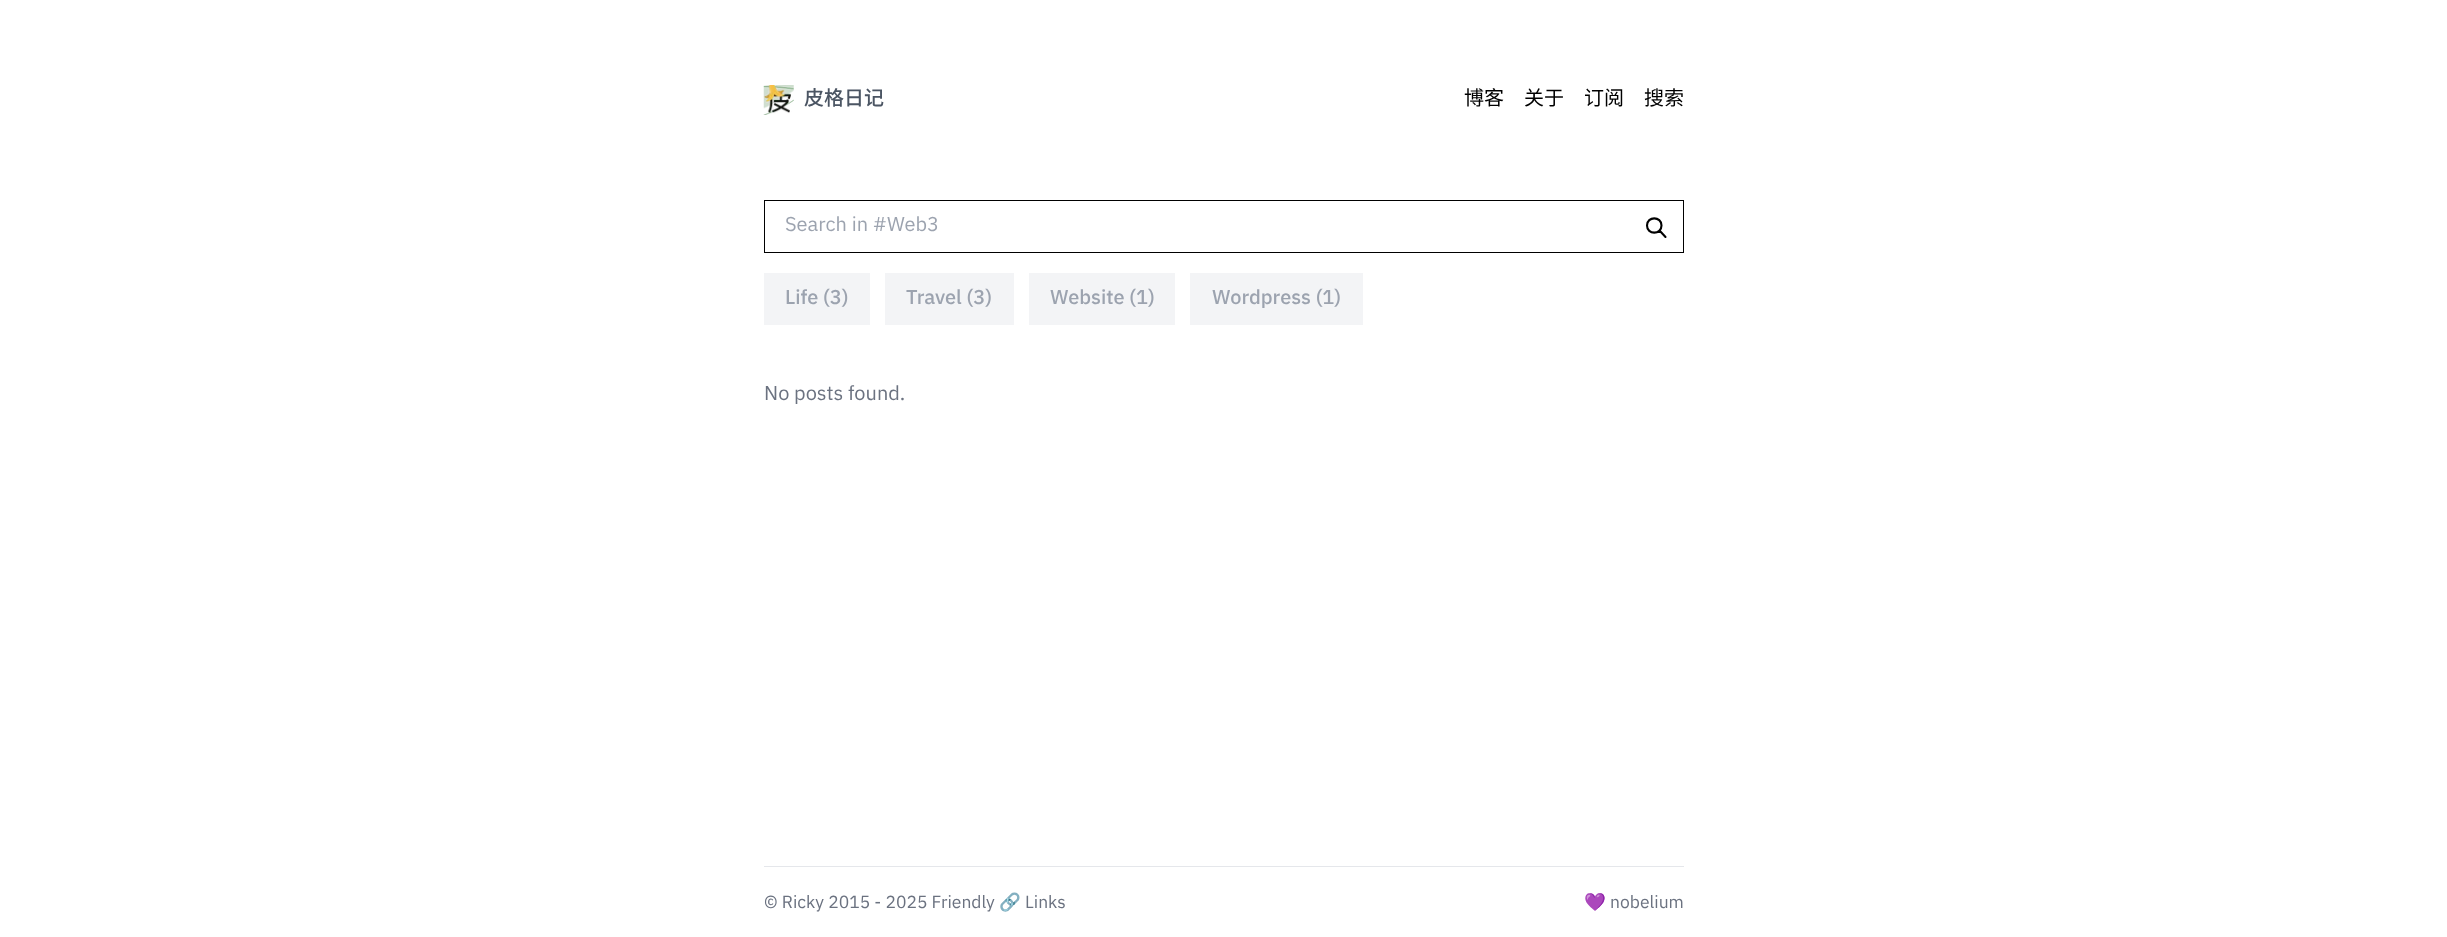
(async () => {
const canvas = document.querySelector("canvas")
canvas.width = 2447
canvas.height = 937
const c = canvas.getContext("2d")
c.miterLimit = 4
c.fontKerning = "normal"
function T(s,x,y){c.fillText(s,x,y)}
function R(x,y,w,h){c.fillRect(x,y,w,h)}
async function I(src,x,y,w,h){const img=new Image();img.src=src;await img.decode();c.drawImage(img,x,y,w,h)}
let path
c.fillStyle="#fff"
R(0,0,2447,937)
await I("1.png",763,85,31,30)
c.font="500 20px Noto Sans CJK SC"
c.fillStyle="#4b5563"
T("皮格日记",804,105)
c.font="20px Noto Sans CJK SC"
c.fillStyle="#000"
T("博客",1464,105)
T("关于",1524,105)
T("订阅",1584,105)
T("搜索",1644,105)
c.strokeStyle="#000"
c.strokeRect(764.5,200.5,919,52)
c.font="20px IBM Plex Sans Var"
c.fillStyle="#9ca3af"
T("Search in #Web3",785,231)
path = new Path2D("M1665.5 237l-6-6.5m2-5c0 9.5-14.5 9.5-14.5 0c0-9.5 14.5-9.5 14.5 0z")
c.lineWidth=2.1
c.lineCap="round"
c.lineJoin="round"
c.stroke(path)
c.fillStyle="#f3f4f6"
R(764,273,106,52)
c.font="500 20px IBM Plex Sans Var"
c.fillStyle="#9ca3af"
T("Life (3)",785,304)
c.fillStyle="#f3f4f6"
R(885,273,129,52)
c.fillStyle="#9ca3af"
T("Travel (3)",906,304)
c.fillStyle="#f3f4f6"
R(1029,273,146,52)
c.fillStyle="#9ca3af"
T("Website (1)",1050,304)
c.fillStyle="#f3f4f6"
R(1190,273,173,52)
c.fillStyle="#9ca3af"
T("Wordpress (1)",1212,304)
c.font="20px IBM Plex Sans Var"
c.fillStyle="#6b7280"
T("No posts found.",764,400)
c.fillStyle="#e5e7eb"
R(764,866,920,1)
c.font="17.5px IBM Plex Sans Var"
c.fillStyle="#6b7280"
T("© Ricky 2015 - 2025 Friendly",764,908)
c.font="17.5px Noto Color Emoji"
T("🔗",999,908)
c.font="17.5px IBM Plex Sans Var"
T("Links",1025,908)
c.font="17.5px Noto Color Emoji"
T("💜",1584,908)
c.font="17.5px IBM Plex Sans Var"
T("nobelium",1610,908)
})()
